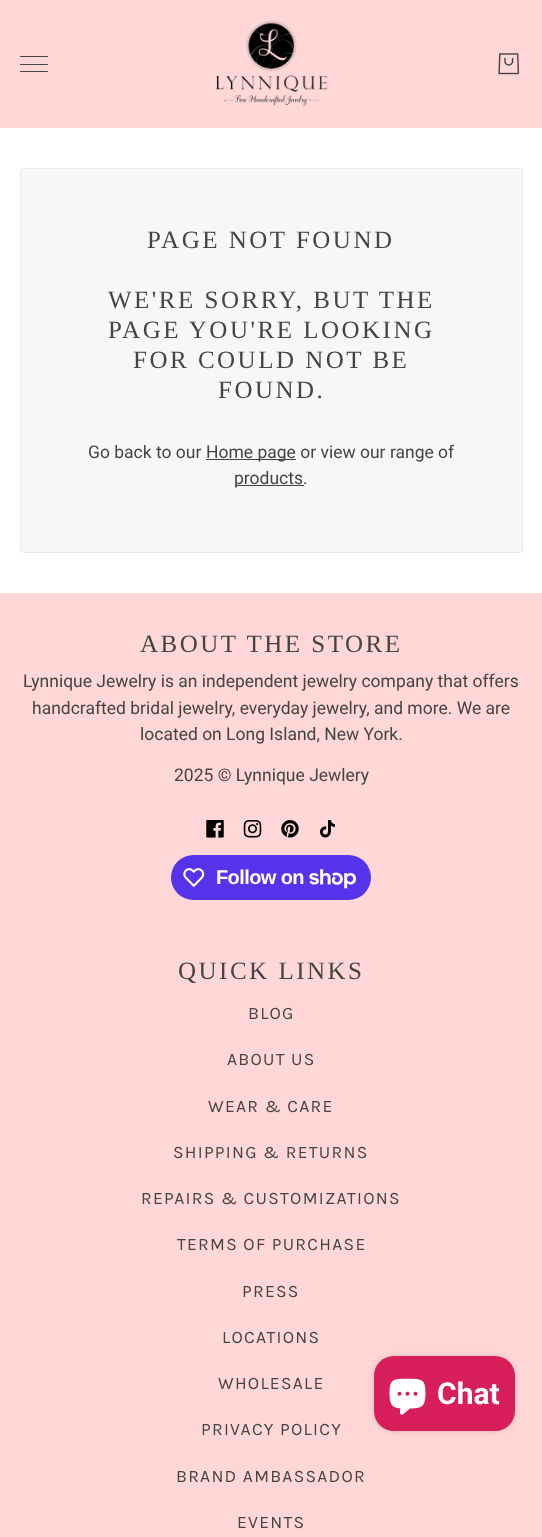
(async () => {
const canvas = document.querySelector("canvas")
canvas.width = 542
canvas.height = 1537
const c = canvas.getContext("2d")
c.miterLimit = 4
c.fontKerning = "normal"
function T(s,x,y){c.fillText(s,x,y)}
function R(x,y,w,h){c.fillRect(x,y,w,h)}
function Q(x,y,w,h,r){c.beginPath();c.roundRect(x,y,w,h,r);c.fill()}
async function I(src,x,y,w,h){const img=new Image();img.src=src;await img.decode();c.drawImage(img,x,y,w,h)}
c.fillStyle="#fff"
R(0,0,542,1537)
c.fillStyle="#ffd7d7"
R(0,0,542,128)
c.fillStyle="#444"
Q(20,56,28,1,.5)
Q(20,64,28,1,.5)
Q(20,71,28,1,.5)
await I("1.png",215,20,113,87)
await I("2.png",498,53,22,22)
c.fillStyle="#f7f7f7"
c.beginPath()
c.roundRect(20.5,168.5,502,384,3.5)
c.fill()
c.strokeStyle="#eaeaea"
c.stroke()
c.letterSpacing="2.5px"
c.font="25px Liberation Serif"
c.fillStyle="#444"
T("PAGE NOT FOUND",147,248)
T("WE'RE SORRY, BUT THE",108,308)
T("PAGE YOU'RE LOOKING",108,338)
T("FOR COULD NOT BE",133,368)
T("FOUND.",218,398)
c.letterSpacing="0px"
c.font="17.5px Roboto"
T("Go back to our",88,458)
R(206,459,90,1)
T("Home page or view our range of",206,458)
R(235,485,69,1)
T("products.",234,484)
c.fillStyle="#ffd7d7"
R(0,593,542,944)
c.letterSpacing="2.5px"
c.font="25px Liberation Serif"
c.fillStyle="#444"
T("ABOUT THE STORE",140,652)
c.letterSpacing="0px"
c.font="17.5px Roboto"
T("Lynnique Jewelry is an independent jewelry company that offers",23,687)
T("handcrafted bridal jewelry, everyday jewelry, and more. We are",32,714)
T("located on Long Island, New York.",140,740)
T("2025 © Lynnique Jewlery",174,781)
await I("3.png",206,820,18,18)
await I("4.png",243,820,19,18)
await I("5.png",281,820,18,18)
await I("6.png",320,820,15,18)
c.fillStyle="#5433eb"
Q(171,855,200,45,22.5)
await I("7.png",183,868,22,19)
c.letterSpacing="-0.6px"
c.font="bold 20px Liberation Sans"
c.fillStyle="#fff"
T("Follow on",216,884)
await I("8.png",309,869,47,20)
c.letterSpacing="2.5px"
c.font="25px Liberation Serif"
c.fillStyle="#444"
T("QUICK LINKS",178,979)
c.letterSpacing="1.25px"
c.font="17.5px Karla"
T("BLOG",248,1019)
T("ABOUT US",227,1065)
T("WEAR & CARE",208,1112)
T("SHIPPING & RETURNS",173,1158)
T("REPAIRS & CUSTOMIZATIONS",141,1204)
T("TERMS OF PURCHASE",177,1250)
T("PRESS",242,1297)
T("LOCATIONS",222,1343)
T("WHOLESALE",218,1389)
T("PRIVACY POLICY",201,1435)
T("BRAND AMBASSADOR",176,1482)
T("EVENTS",237,1528)
c.fillStyle="#00000026"
c.filter="blur(3px)"
c.beginPath()
c.roundRect(374,1356,141,75,20)
c.fill()
c.filter="none"
c.fillStyle="#d81e5b"
Q(374,1356,141,75,20)
await I("9.png",389,1378,37,37)
c.letterSpacing="0px"
c.font="bold 30px Roboto"
c.fillStyle="#fff"
T("Chat",437,1404)
})()
